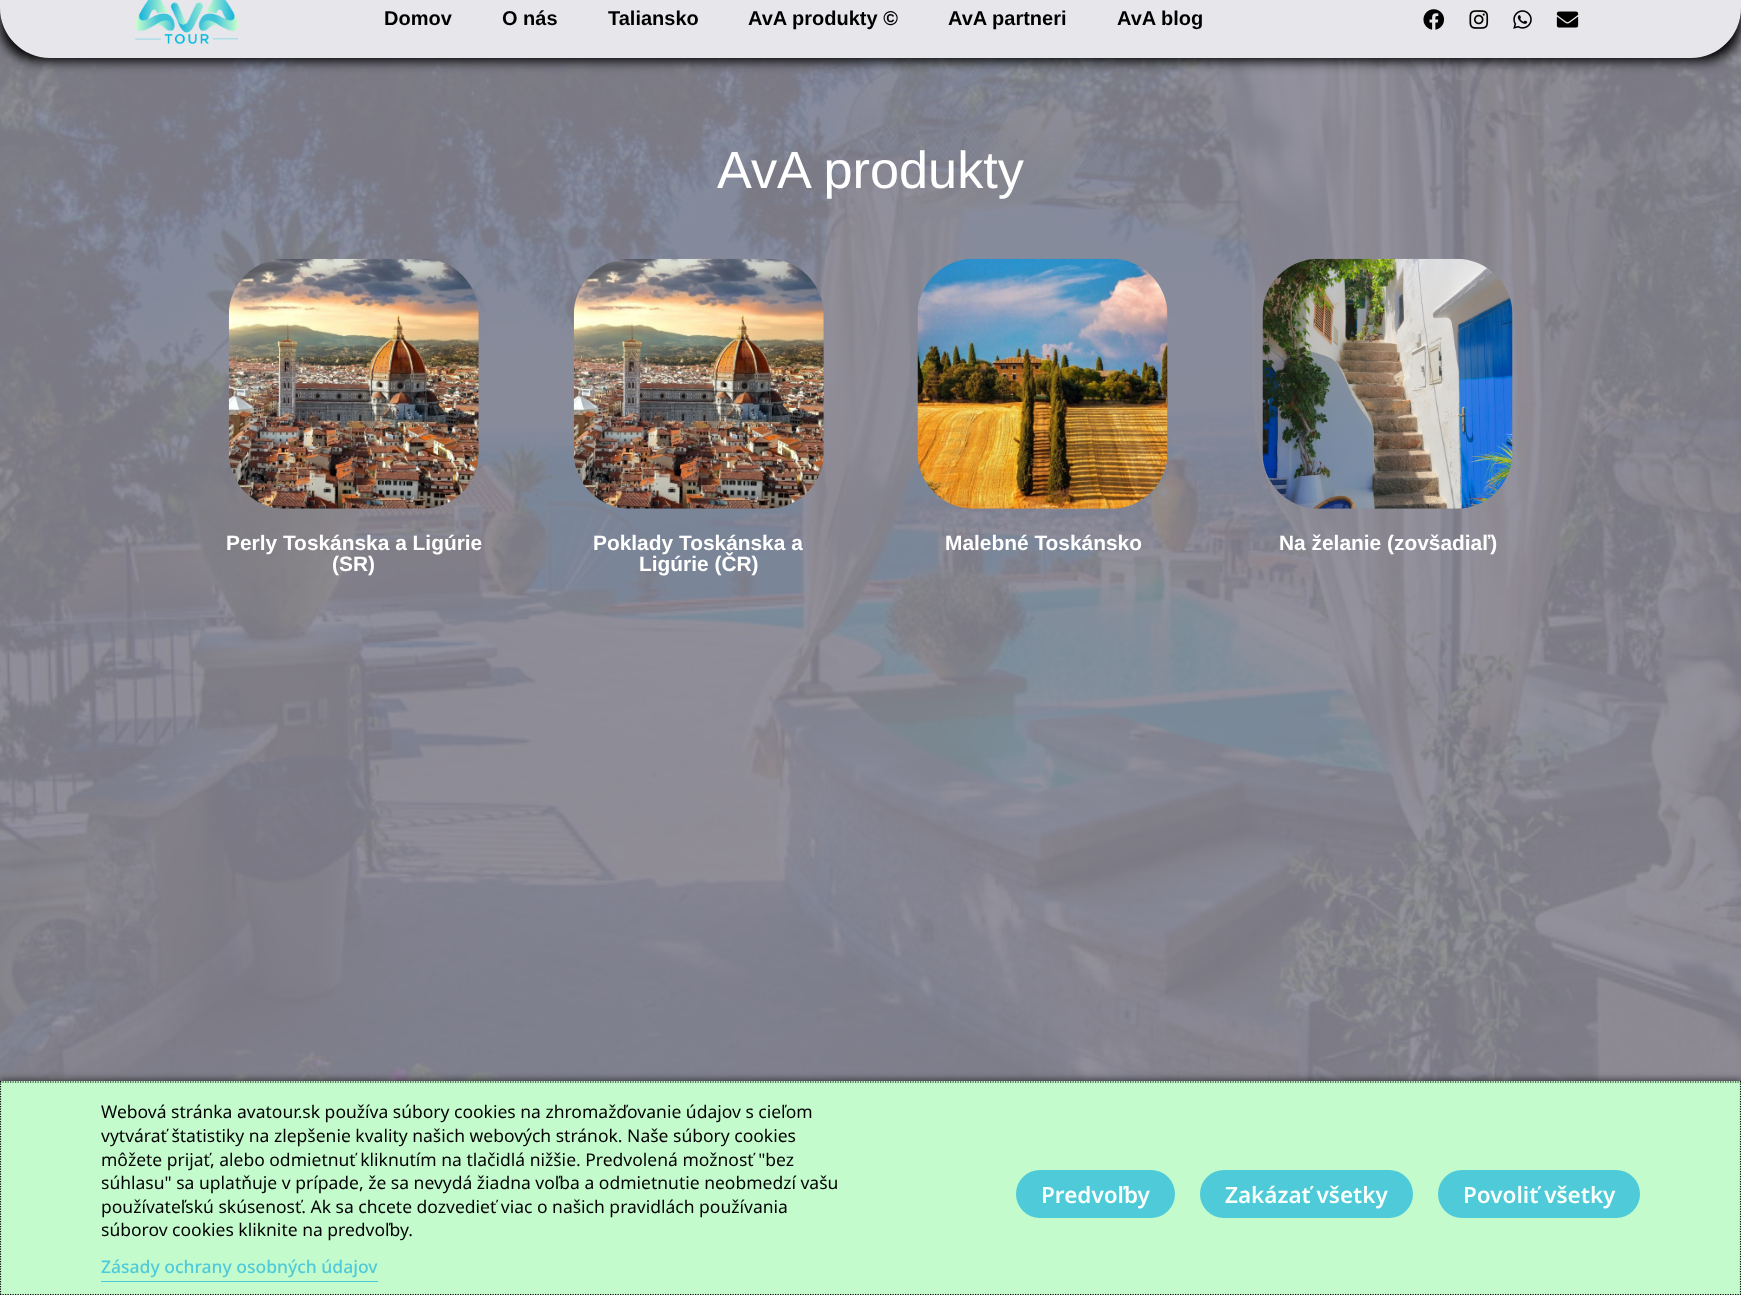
(async () => {
const canvas = document.querySelector("canvas")
canvas.width = 1741
canvas.height = 1295
const c = canvas.getContext("2d")
c.miterLimit = 4
c.fontKerning = "normal"
function T(s,x,y){c.fillText(s,x,y)}
function R(x,y,w,h){c.fillRect(x,y,w,h)}
function Q(x,y,w,h,r){c.beginPath();c.roundRect(x,y,w,h,r);c.fill()}
async function I(src,x,y,w,h){const img=new Image();img.src=src;await img.decode();c.drawImage(img,x,y,w,h)}
let path
c.fillStyle="#fff"
R(0,0,1741,1295)
await I("6.png",0,8,1741,1073)
c.fillStyle="#000"
c.filter="blur(6px)"
c.beginPath()
c.roundRect(0,-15,1741,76,50)
c.fill()
c.filter="none"
c.fillStyle="#e7e7eb"
path = new Path2D("M0-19h1741v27c0 27.5-22.5 50-50 50h-1641c-27.5 0-50-22.5-50-50z")
c.fill(path)
await I("1.png",135,0,104,44)
c.font="bold 20px Liberation Sans"
c.fillStyle="#000"
T("Domov",384,25)
T("O nás",502,25)
T("Taliansko",608,25)
T("AvA produkty ©",748,25)
T("AvA partneri",948,25)
T("AvA blog",1117,25)
await I("2.png",1423,9,21,21)
await I("3.png",1469,10,20,19)
await I("4.png",1513,10,19,19)
await I("5.png",1556,11,23,17)
c.font="52.25px Liberation Sans"
c.fillStyle="#fff"
T("AvA produkty",717,188)
await I("7.png",228,258,251,251)
c.font="bold 20.9px Liberation Sans"
T("Perly Toskánska a Ligúrie",226,550)
T("(SR)",332,571)
await I("8.png",573,258,251,251)
T("Poklady Toskánska a",593,550)
T("Ligúrie (ČR)",639,571)
await I("9.png",917,258,251,251)
T("Malebné Toskánsko",945,550)
await I("10.png",1262,258,251,251)
T("Na želanie (zovšadiaľ)",1279,550)
c.fillStyle="#00000080"
c.filter="blur(3px)"
c.beginPath()
c.rect(0,1079,1741,214)
c.fill()
c.filter="none"
c.fillStyle="#c4fbcd"
R(0,1081,1741,214)
path = new Path2D("M0 1082h1741")
c.strokeStyle="#000"
c.lineWidth=1.2
c.setLineDash([1.25,1.25])
c.stroke(path)
path = new Path2D("M1740.5 1081v214")
c.stroke(path)
path = new Path2D("M0 1294.5h1741")
c.stroke(path)
path = new Path2D("M.5 1081v214")
c.stroke(path)
c.font="17.5px Noto Sans"
c.fillStyle="#000"
T("Webová stránka avatour.sk používa súbory cookies na zhromažďovanie údajov s cieľom",101,1118)
T("vytvárať štatistiky na zlepšenie kvality našich webových stránok. Naše súbory cookies",101,1142)
T("môžete prijať, alebo odmietnuť kliknutím na tlačidlá nižšie. Predvolená možnosť \"bez",101,1166)
T("súhlasu\" sa uplatňuje v prípade, že sa nevydá žiadna voľba a odmietnutie neobmedzí vašu",101,1189)
T("používateľskú skúsenosť. Ak sa chcete dozvedieť viac o našich pravidlách používania",101,1213)
T("súborov cookies kliknite na predvoľby.",101,1236)
c.font="500 17.5px Noto Sans"
c.fillStyle="#4ecad9"
T("Zásady ochrany osobných údajov",101,1273)
R(101,1281,277,1)
Q(1016,1170,159,48,24)
c.font="600 22.5px Noto Sans"
c.fillStyle="#f9fffa"
T("Predvoľby",1041,1203)
c.fillStyle="#4ecad9"
Q(1200,1170,213,48,24)
c.fillStyle="#f9fffa"
T("Zakázať všetky",1225,1203)
c.fillStyle="#4ecad9"
Q(1438,1170,202,48,24)
c.fillStyle="#f9fffa"
T("Povoliť všetky",1463,1203)
})()
